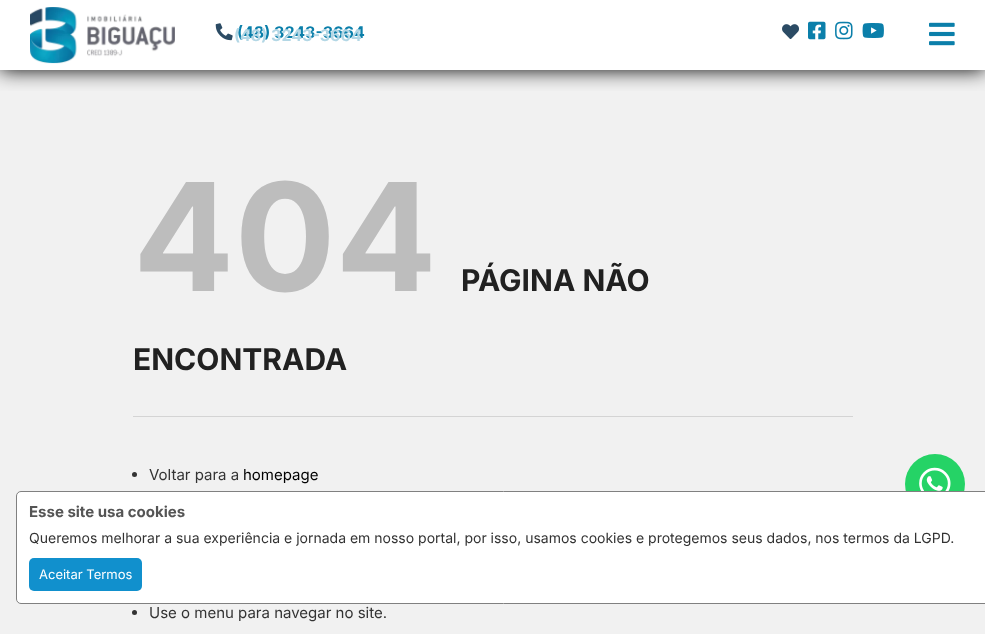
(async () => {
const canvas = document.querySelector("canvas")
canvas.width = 985
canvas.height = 634
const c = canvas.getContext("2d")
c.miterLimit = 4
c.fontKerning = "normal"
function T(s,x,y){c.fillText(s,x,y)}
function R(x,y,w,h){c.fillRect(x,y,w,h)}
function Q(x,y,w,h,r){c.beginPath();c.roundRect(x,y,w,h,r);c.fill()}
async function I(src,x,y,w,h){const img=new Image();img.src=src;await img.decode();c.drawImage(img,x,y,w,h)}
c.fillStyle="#fff"
R(0,0,985,634)
c.fillStyle="#f1f1f1"
R(0,70,985,564)
c.save()
c.beginPath()
c.rect(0,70,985,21)
c.clip()
c.fillStyle="#000"
c.filter="blur(10px)"
c.beginPath()
c.rect(0,0,985,70)
c.fill()
c.filter="none"
c.restore()
await I("1.png",30,7,145,57)
await I("2.png",215,23,18,18)
c.font="bold 16px Inter"
c.fillStyle="#0b7faa"
T("(48) 3243-3664",237,38)
c.fillStyle="#b3d7e5"
T("(48) 3243-3664",234,41)
await I("3.png",782,24,17,15)
await I("4.png",808,21,18,19)
await I("5.png",835,21,18,19)
await I("6.png",862,23,22,15)
await I("7.png",929,22,26,24)
c.fillStyle="#d4d4d4"
R(133,416,720,1)
c.font="bold 150px Inter"
c.fillStyle="#bdbdbd"
T("404",133,291)
c.font="bold 30px Inter"
c.fillStyle="#212121"
T("PÁGINA NÃO",461,291)
T("ENCONTRADA",133,370)
c.fillStyle="#333"
c.beginPath()
c.arc(134.5,474.5,2.5,0,7)
c.fill()
c.font="15px Inter"
T("Voltar para a",149,480)
c.fillStyle="#000"
T("homepage",243,480)
c.fillStyle="#333"
c.beginPath()
c.arc(134.5,612.5,2.5,0,7)
c.fill()
T("Use o menu para navegar no site.",149,618)
c.fillStyle="#25d366"
c.beginPath()
c.arc(935,484,30,0,7)
c.fill()
await I("8.png",919,467,32,24)
c.fillStyle="#fff"
c.beginPath()
c.roundRect(16.5,491.5,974,112,4.5)
c.fill()
c.strokeStyle="#808080"
c.stroke()
c.font="bold 15px Inter"
c.fillStyle="#555"
T("Esse site usa cookies",29,517)
c.font="14px Inter"
c.fillStyle="#333"
T("Queremos melhorar a sua experiência e jornada em nosso portal, por isso, usamos cookies e protegemos seus dados, nos termos da LGPD.",29,543)
c.fillStyle="#1190cd"
Q(29,558,113,33,5)
c.font="13px Inter"
c.fillStyle="#fff"
T("Aceitar Termos",39,579)
})()
